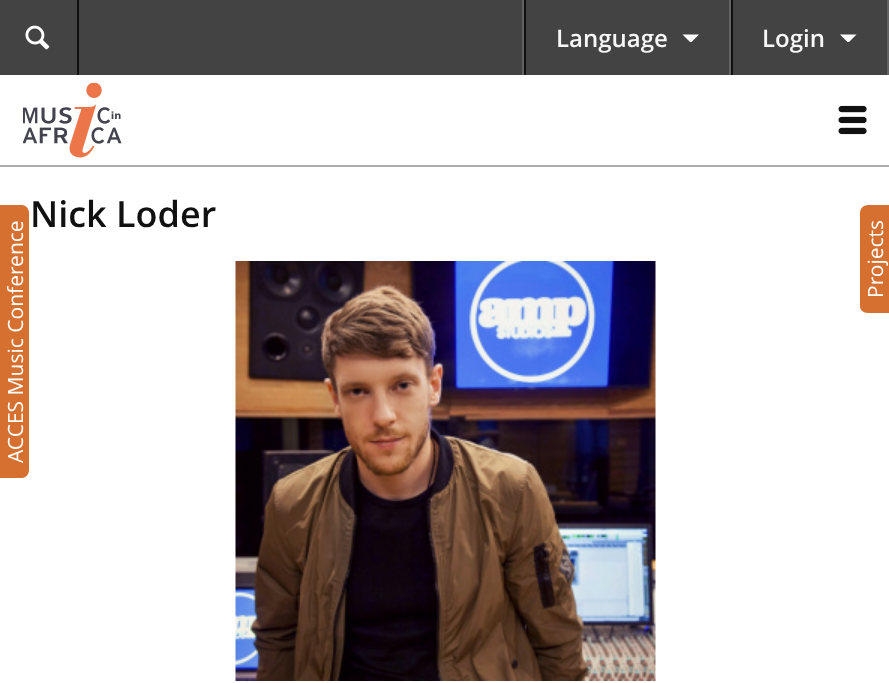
(async () => {
const canvas = document.querySelector("canvas")
canvas.width = 889
canvas.height = 683
const c = canvas.getContext("2d")
c.miterLimit = 4
c.fontKerning = "normal"
function T(s,x,y){c.fillText(s,x,y)}
function R(x,y,w,h){c.fillRect(x,y,w,h)}
async function I(src,x,y,w,h){const img=new Image();img.src=src;await img.decode();c.drawImage(img,x,y,w,h)}
let path
c.fillStyle="#fff"
R(0,0,889,683)
c.fillStyle="#434343"
R(0,0,887,75)
c.fillStyle="#111"
R(77,0,2,75)
await I("1.png",25,25,25,25)
c.fillStyle="#636363"
R(729,0,2,75)
R(522,0,2,75)
c.fillStyle="#111"
R(524,0,2,75)
c.font="600 24px Open Sans"
c.fillStyle="#f7f7f7"
T("Language",556,47)
c.fillStyle="#fff"
path = new Path2D("M682.5 34.5h16.5l-7.5 7.5h-1.5z")
c.fill(path)
c.fillStyle="#636363"
R(887,0,2,75)
c.fillStyle="#111"
R(731,0,2,75)
c.fillStyle="#f7f7f7"
T("Login",762,47)
c.fillStyle="#fff"
path = new Path2D("M840 34.5h16.5l-7.5 7.5h-1.5z")
c.fill(path)
c.fillStyle="#acacac"
R(0,165,889,2)
await I("2.png",23,83,99,75)
await I("3.png",838,105,29,30)
c.font="600 36px Open Sans"
c.fillStyle="#111"
T("Nick Loder",30,227)
await I("4.png",235,261,421,420)
c.fillStyle="#d57031"
path = new Path2D("M0 478v-273h22c4 0 7 4 7 8v257c0 4-3 8-7 8z")
c.fill(path)
c.font="21px Open Sans"
c.fillStyle="#fff"
c.save()
c.translate(23,463)
c.rotate(-90 * Math.PI / 180)
c.fillText("ACCES Music Conference",0,0)
c.restore()
c.fillStyle="#d57031"
path = new Path2D("M860 306v-93c0-4 3-8 8-8h21v108h-21c-5 0-8-3-8-7z")
c.fill(path)
c.fillStyle="#fff"
c.save()
c.translate(883,298)
c.rotate(-90 * Math.PI / 180)
c.fillText("Projects",0,0)
c.restore()
})()
